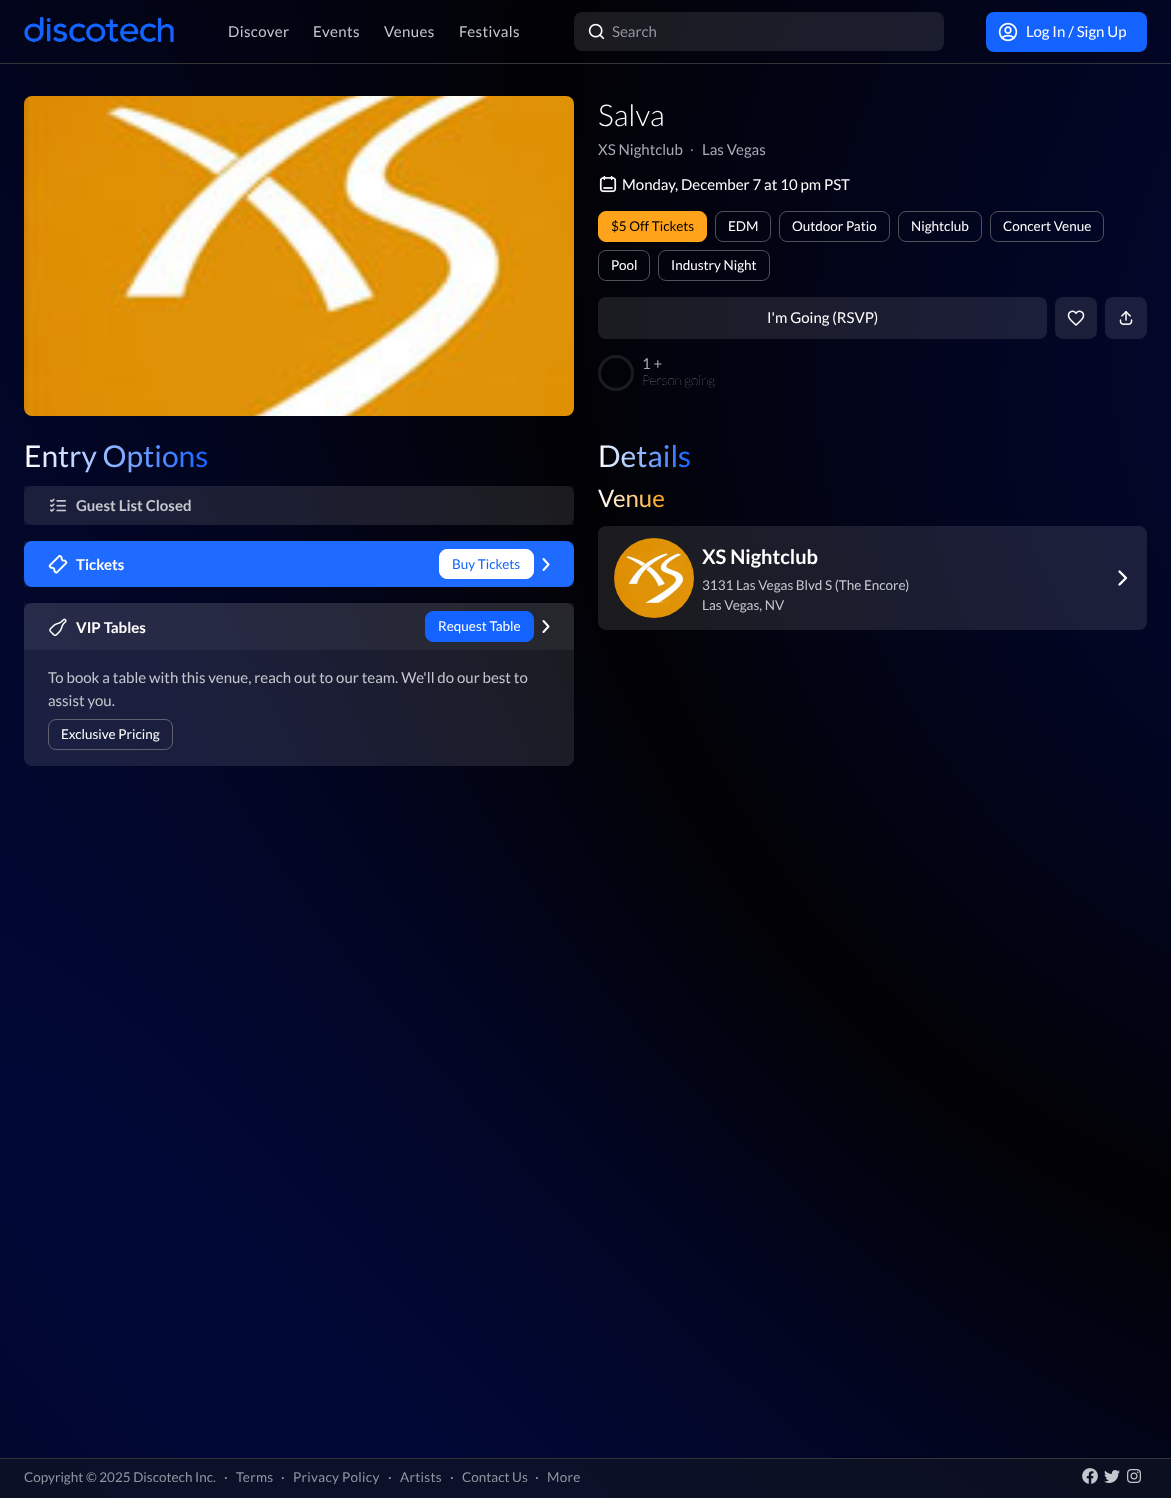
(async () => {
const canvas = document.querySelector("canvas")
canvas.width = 1171
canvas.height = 1498
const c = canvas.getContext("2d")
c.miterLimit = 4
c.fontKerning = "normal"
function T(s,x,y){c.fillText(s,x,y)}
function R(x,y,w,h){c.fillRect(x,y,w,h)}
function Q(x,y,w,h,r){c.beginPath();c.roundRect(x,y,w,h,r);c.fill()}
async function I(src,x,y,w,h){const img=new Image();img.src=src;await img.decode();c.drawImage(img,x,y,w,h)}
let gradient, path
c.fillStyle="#fff"
R(0,0,1171,1498)
await I("1.png",0,0,1171,1498)
c.fillStyle="#333338"
R(0,63,1171,1)
await I("2.png",24,17,150,25)
c.letterSpacing="0.4px"
c.font="15px Lato"
c.fillStyle="#c4c7cd"
T("Discover",228,37)
T("Events",313,37)
T("Venues",384,37)
T("Festivals",459,37)
c.fillStyle="#ffffff1a"
Q(574,12,370,39,8)
await I("3.png",588,23,17,17)
c.letterSpacing="0px"
c.fillStyle="#9095a1"
T("Search",612,37)
c.fillStyle="#1463ff"
Q(986,12,161,40,8)
await I("4.png",998,22,20,20)
c.fillStyle="#fff"
T("Log In / Sign Up",1026,37)
await I("5.png",24,96,550,320)
c.font="300 30px Lato"
T("Salva",598,126)
c.font="15px Lato"
c.fillStyle="#a6aab4"
T("XS Nightclub",598,155)
c.font="15px Liberation Serif"
T("∙",690,155)
c.font="15px Lato"
T("Las Vegas",702,155)
await I("6.png",599,175,18,18)
c.fillStyle="#fff"
T("Monday, December 7 at 10 pm PST",622,190)
c.fillStyle="#ffa41a"
c.beginPath()
c.roundRect(598.5,211.5,108,30,7.5)
c.fill()
c.strokeStyle="#ffa41a"
c.stroke()
c.font="13.5px Lato"
c.fillStyle="#000"
T("$5 Off Tickets",611,231)
c.beginPath()
c.roundRect(715.5,211.5,55,30,7.5)
c.strokeStyle="#4f5159"
c.stroke()
c.fillStyle="#fff"
T("EDM",728,231)
c.beginPath()
c.roundRect(779.5,211.5,110,30,7.5)
c.stroke()
T("Outdoor Patio",792,231)
c.beginPath()
c.roundRect(898.5,211.5,83,30,7.5)
c.stroke()
T("Nightclub",911,231)
c.beginPath()
c.roundRect(990.5,211.5,113,30,7.5)
c.stroke()
T("Concert Venue",1003,231)
c.beginPath()
c.roundRect(598.5,250.5,51,30,7.5)
c.stroke()
T("Pool",611,270)
c.beginPath()
c.roundRect(658.5,250.5,111,30,7.5)
c.stroke()
T("Industry Night",671,270)
c.fillStyle="#ffffff1a"
Q(598,297,449,42,8)
c.font="15px Lato"
c.fillStyle="#fff"
T("I'm Going (RSVP)",767,323)
c.fillStyle="#1b1f3a"
Q(1055,297,42,42,8)
await I("7.png",1067,310,18,16)
c.fillStyle="#1b1f3d"
Q(1105,297,42,42,8)
await I("8.png",1119,311,14,14)
c.beginPath()
c.arc(616,373,16.5,0,7)
c.strokeStyle="#ffffff1a"
c.lineWidth=3
c.stroke()
c.fillStyle="#a6aab4"
T("1 +",642,369)
c.font="100 13.5px Lato"
c.fillStyle="#c4c7cd"
T("Person going",642,385)
c.font="30px Lato"
gradient = c.createLinearGradient(24,455,208,455)
gradient.addColorStop(0,"#fff")
gradient.addColorStop(1,"#1463ff")
c.fillStyle = gradient
T("Entry Options",24,467)
c.fillStyle="#9696961a"
Q(24,486,550,39,8)
c.fillStyle="#ffffff0d"
R(24,486,550,39)
await I("9.png",50,498,16,14)
c.font="bold 15px Lato"
c.fillStyle="#c4c7cd"
T("Guest List Closed",76,511)
c.fillStyle="#1463ff"
Q(24,541,550,46,8)
c.fillStyle="#ffffff0d"
R(24,541,550,46)
await I("10.png",48,554,20,20)
c.fillStyle="#fff"
T("Tickets",76,570)
c.beginPath()
c.roundRect(439.5,549.5,94,29,7.5)
c.fill()
c.strokeStyle="#fff"
c.lineWidth=1
c.stroke()
c.font="13.5px Lato"
c.fillStyle="#1463ff"
T("Buy Tickets",452,569)
path = new Path2D("M543.5 570l5-5.5l-5-5.5")
c.lineWidth=2
c.lineCap="round"
c.lineJoin="round"
c.stroke(path)
c.fillStyle="#ffffff1a"
Q(24,603,550,163,8)
c.fillStyle="#ffffff0d"
R(24,603,550,47)
await I("11.png",49,618,18,18)
c.font="bold 15px Lato"
c.fillStyle="#fff"
T("VIP Tables",76,633)
c.fillStyle="#1463ff"
c.beginPath()
c.roundRect(425.5,611.5,108,30,7.5)
c.fill()
c.strokeStyle="#1463ff"
c.lineWidth=1
c.lineJoin="miter"
c.stroke()
c.font="13.5px Lato"
c.fillStyle="#fff"
T("Request Table",438,631)
path = new Path2D("M543.5 632l5-5.5l-5-5.5")
c.strokeStyle="#fff"
c.lineWidth=2
c.lineJoin="round"
c.stroke(path)
c.font="15px Lato"
c.fillStyle="#c4c7cd"
T("To book a table with this venue, reach out to our team. We'll do our best to",48,683)
T("assist you.",48,706)
c.beginPath()
c.roundRect(48.5,719.5,124,30,7.5)
c.strokeStyle="#60616d"
c.lineWidth=1
c.lineJoin="miter"
c.stroke()
c.font="13.5px Lato"
c.fillStyle="#fff"
T("Exclusive Pricing",61,739)
c.font="30px Lato"
gradient = c.createLinearGradient(598,455,691,455)
gradient.addColorStop(0,"#fff")
gradient.addColorStop(1,"#1463ff")
c.fillStyle = gradient
T("Details",598,467)
c.font="24px Lato"
gradient = c.createLinearGradient(598,498,664,498)
gradient.addColorStop(0,"#fff")
gradient.addColorStop(1,"#ffa41a")
c.fillStyle = gradient
T("Venue",598,507)
c.fillStyle="#ffffff1a"
Q(598,526,549,104,8)
await I("12.png",614,538,80,80)
c.font="bold 20px Lato"
c.fillStyle="#fff"
T("XS Nightclub",702,564)
c.font="13.5px Lato"
c.fillStyle="#c4c7cd"
T("3131 Las Vegas Blvd S (The Encore)",702,590)
T("Las Vegas, NV",702,610)
path = new Path2D("M1119.5 584.5l6.5-6.5l-6.5-6.5")
c.strokeStyle="#fff"
c.lineWidth=2.4
c.lineJoin="round"
c.stroke(path)
c.fillStyle="#121623a8"
R(0,1459,1171,39)
c.fillStyle="#333338"
R(0,1458,1171,1)
c.fillStyle="#9095a1"
T("Copyright © 2025 Discotech Inc.",24,1482)
T("·",224,1482)
c.letterSpacing="0.3px"
T("Terms",236,1482)
c.letterSpacing="0px"
T("·",281,1482)
c.letterSpacing="0.3px"
T("Privacy Policy",293,1482)
c.letterSpacing="0px"
T("·",388,1482)
c.letterSpacing="0.3px"
T("Artists",400,1482)
c.letterSpacing="0px"
T("·",450,1482)
T("Contact Us",462,1482)
T("·",535,1482)
c.letterSpacing="0.3px"
T("More",547,1482)
await I("13.png",1082,1468,16,16)
await I("14.png",1104,1470,16,13)
await I("15.png",1127,1469,14,14)
})()
